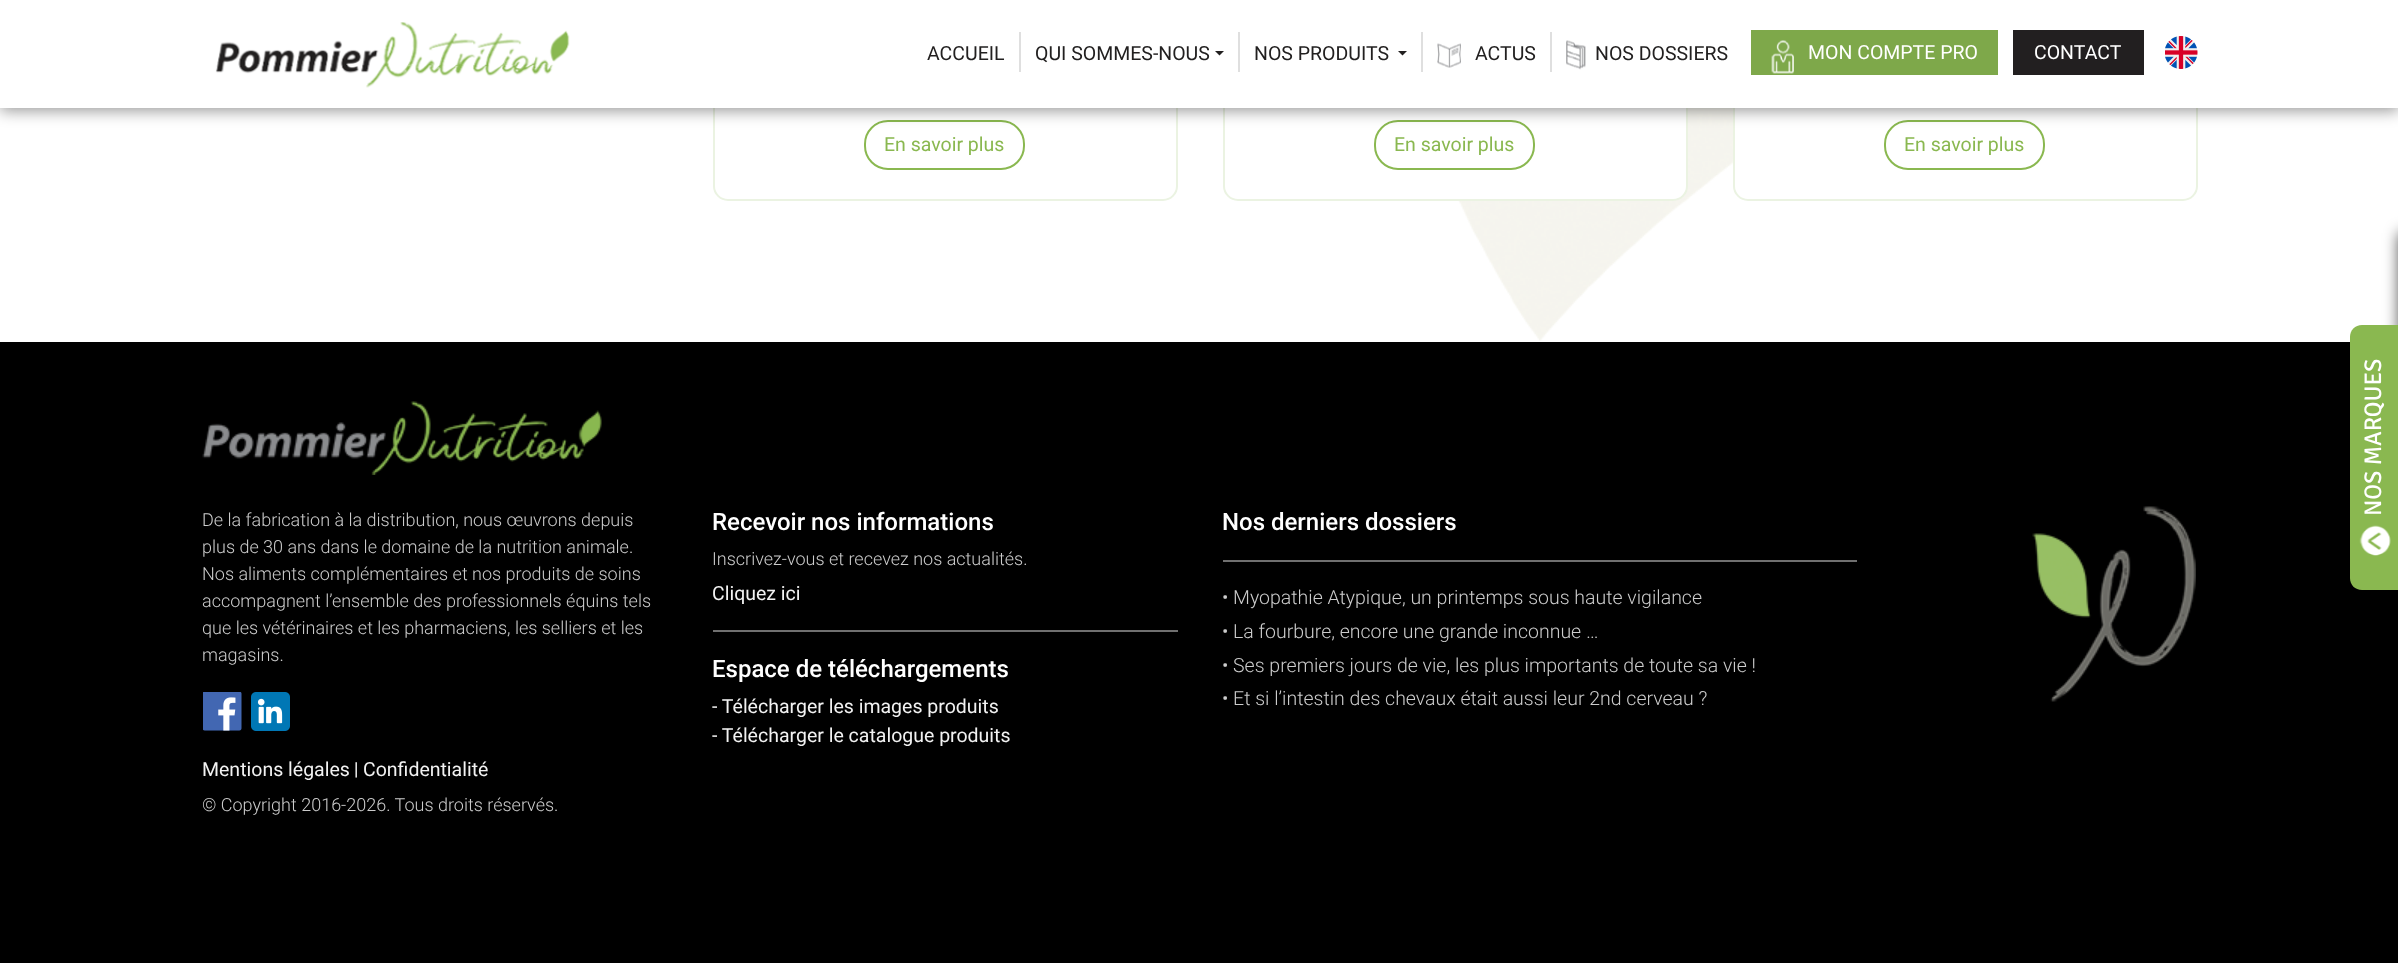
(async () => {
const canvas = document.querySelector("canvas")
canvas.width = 2398
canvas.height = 963
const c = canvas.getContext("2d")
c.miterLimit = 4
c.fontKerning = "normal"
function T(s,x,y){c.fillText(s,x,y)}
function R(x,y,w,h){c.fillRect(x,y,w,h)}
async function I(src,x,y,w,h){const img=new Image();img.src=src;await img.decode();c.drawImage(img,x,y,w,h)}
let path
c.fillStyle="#fff"
R(0,0,2398,963)
await I("6.png",1458,108,275,233)
c.beginPath()
c.roundRect(714,-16,463,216,14)
c.strokeStyle="#ebf3e2"
c.lineWidth=2
c.stroke()
c.beginPath()
c.roundRect(865,121,159,48,23)
c.strokeStyle="#8ab850"
c.stroke()
c.beginPath()
c.roundRect(1224,-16,463,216,14)
c.fill()
c.strokeStyle="#ebf3e2"
c.stroke()
c.beginPath()
c.roundRect(1375,121,159,48,23)
c.strokeStyle="#8ab850"
c.stroke()
c.beginPath()
c.roundRect(1734,-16,463,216,14)
c.strokeStyle="#ebf3e2"
c.stroke()
c.beginPath()
c.roundRect(1885,121,159,48,23)
c.strokeStyle="#8ab850"
c.stroke()
c.fillStyle="#00000066"
c.filter="blur(7.5px)"
c.beginPath()
c.rect(0,3,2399,108)
c.fill()
c.filter="none"
c.fillStyle="#fff"
R(0,0,2398,108)
await I("1.png",215,22,355,66)
c.font="19.5px Roboto"
c.fillStyle="#222020"
T("ACCUEIL",927,60)
c.fillStyle="#dfdfdf"
R(1019,32,2,40)
c.fillStyle="#222020"
T("QUI SOMMES-NOUS",1035,60)
path = new Path2D("M1215 51h9l-4.5 4.5z")
c.fill(path)
c.fillStyle="#dfdfdf"
R(1238,32,2,40)
c.fillStyle="#222020"
T("NOS PRODUITS",1254,60)
path = new Path2D("M1398 51h9l-4.5 4.5z")
c.fill(path)
c.fillStyle="#dfdfdf"
R(1421,32,2,40)
await I("2.png",1437,43,24,25)
c.fillStyle="#222020"
T("ACTUS",1475,60)
c.fillStyle="#dfdfdf"
R(1550,32,2,40)
await I("3.png",1566,40,20,30)
c.fillStyle="#222020"
T("NOS DOSSIERS",1595,60)
c.fillStyle="#7ea84a"
R(1751,30,247,45)
await I("4.png",1771,40,23,34)
c.fillStyle="#fff"
T("MON COMPTE PRO",1808,59)
c.fillStyle="#221f20"
R(2013,30,131,45)
c.fillStyle="#fff"
T("CONTACT",2034,59)
await I("5.png",2165,36,33,33)
c.fillStyle="#8ab850"
T("En savoir plus",884,151)
T("En savoir plus",1394,151)
T("En savoir plus",1904,151)
c.fillStyle="#000"
R(0,342,2398,621)
c.fillStyle="#000000b3"
c.filter="blur(7.5px)"
c.beginPath()
c.rect(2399,233,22,460)
c.fill()
c.filter="none"
c.fillStyle="#8ab850"
path = new Path2D("M2350 578v-241c0-7 5-12 12-12h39v265h-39c-7 0-12-5-12-12z")
c.fill(path)
c.font="24px Signika"
c.fillStyle="#fff"
c.save()
c.translate(2381,516)
c.rotate(-90 * Math.PI / 180)
c.fillText("NOS MARQUES",0,0)
c.restore()
await I("7.png",2359,525,32,31)
await I("8.png",202,401,400,74)
c.font="300 18px Roboto"
c.fillStyle="#ccc"
T("De la fabrication à la distribution, nous œuvrons depuis",202,526)
T("plus de 30 ans dans le domaine de la nutrition animale.",202,553)
T("Nos aliments complémentaires et nos produits de soins",202,580)
T("accompagnent l’ensemble des professionnels équins tels",202,607)
T("que les vétérinaires et les pharmaciens, les selliers et les",202,634)
T("magasins.",202,661)
await I("9.png",203,692,39,39)
await I("10.png",251,692,39,39)
c.font="19.5px Roboto"
c.fillStyle="#f2f2f2"
T("Mentions légales",202,776)
c.font="18px Roboto"
c.fillStyle="#fff"
T("|",354,775)
c.font="19.5px Roboto"
c.fillStyle="#f2f2f2"
T("Confidentialité",363,776)
c.font="300 18px Roboto"
c.fillStyle="#ccc"
T("© Copyright 2016-2026. Tous droits réservés.",202,811)
c.font="500 24px Roboto"
c.fillStyle="#fff"
T("Recevoir nos informations",712,530)
c.font="300 18px Roboto"
c.fillStyle="#ccc"
T("Inscrivez-vous et recevez nos actualités.",712,565)
c.font="19.5px Roboto"
c.fillStyle="#f2f2f2"
T("Cliquez ici",712,600)
c.fillStyle="#707070"
R(713,630,465,2)
c.font="500 24px Roboto"
c.fillStyle="#fff"
T("Espace de téléchargements",712,677)
c.font="19.5px Roboto"
c.fillStyle="#f2f2f2"
T("- Télécharger les images produits",712,713)
T("- Télécharger le catalogue produits",712,742)
c.font="500 24px Roboto"
c.fillStyle="#fff"
T("Nos derniers dossiers",1222,530)
c.fillStyle="#707070"
R(1223,560,634,2)
c.font="300 19.5px Roboto"
c.fillStyle="#ccc"
T("• Myopathie Atypique, un printemps sous haute vigilance",1222,604)
T("• La fourbure, encore une grande inconnue …",1222,638)
T("• Ses premiers jours de vie, les plus importants de toute sa vie !",1222,672)
T("• Et si l’intestin des chevaux était aussi leur 2nd cerveau ?",1222,705)
await I("11.png",2032,506,164,196)
})()
